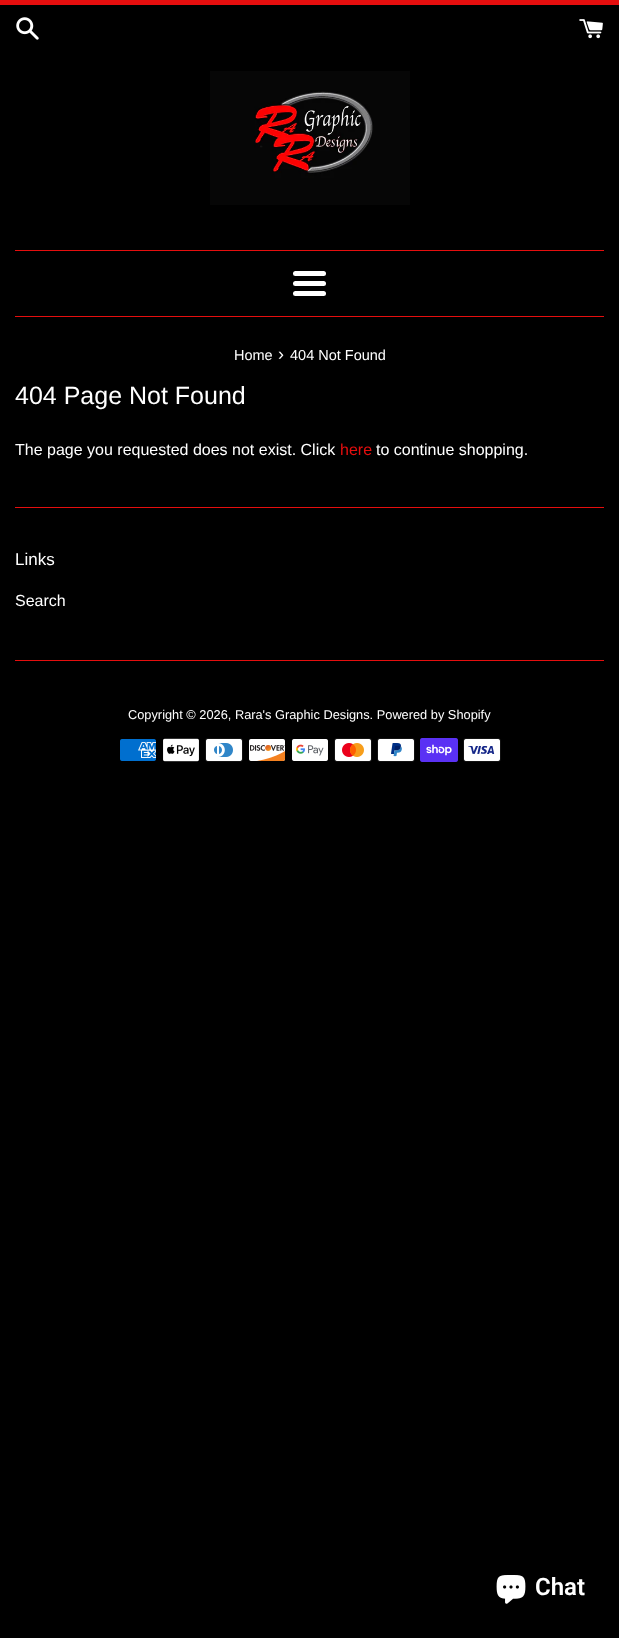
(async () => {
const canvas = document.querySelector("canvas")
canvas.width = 619
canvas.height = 1638
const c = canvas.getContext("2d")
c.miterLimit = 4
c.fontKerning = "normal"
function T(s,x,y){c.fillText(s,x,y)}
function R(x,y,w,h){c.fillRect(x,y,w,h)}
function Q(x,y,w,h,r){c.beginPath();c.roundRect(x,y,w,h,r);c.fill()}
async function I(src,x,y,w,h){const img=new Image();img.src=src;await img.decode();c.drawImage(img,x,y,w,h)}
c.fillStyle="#000"
R(0,0,619,1638)
c.fillStyle="#e50e0e"
R(0,0,619,5)
await I("1.png",16,17,23,23)
await I("2.png",579,19,24,20)
await I("3.png",210,71,200,134)
R(15,250,589,1)
c.fillStyle="#fff"
Q(293,271,33,5,2.5)
Q(293,281,33,5,2.5)
Q(293,291,33,5,2.5)
c.fillStyle="#e50e0e"
R(15,316,589,1)
c.font="14.5px Arimo"
c.fillStyle="#fff"
T("Home",234,360)
c.font="18px Arimo"
T("›",278,360)
c.font="14.5px Arimo"
T("404 Not Found",290,360)
c.font="25px Arimo"
T("404 Page Not Found",15,404)
c.font="16px Arimo"
T("The page you requested does not exist. Click",15,455)
c.fillStyle="#e50e0e"
T("here",340,455)
c.fillStyle="#fff"
T("to continue shopping.",376,455)
c.fillStyle="#e50e0e"
R(15,507,589,1)
c.font="17px Arimo"
c.fillStyle="#fff"
T("Links",15,565)
c.font="16px Arimo"
T("Search",15,606)
c.fillStyle="#e50e0e"
R(15,660,589,1)
c.font="12.8px Arimo"
c.fillStyle="#fff"
T("Copyright © 2026, Rara's Graphic Designs. Powered by Shopify",128,719)
await I("4.png",120,739,36,22)
await I("5.png",163,738,36,24)
await I("6.png",205,738,38,24)
await I("7.png",249,739,37,22)
await I("8.png",292,739,36,22)
await I("9.png",334,738,38,24)
await I("10.png",377,738,38,24)
await I("11.png",420,738,38,24)
await I("12.png",463,738,38,24)
await I("13.png",496,1575,30,29)
c.font="600 24px Roboto"
T("Chat",535,1595)
})()
